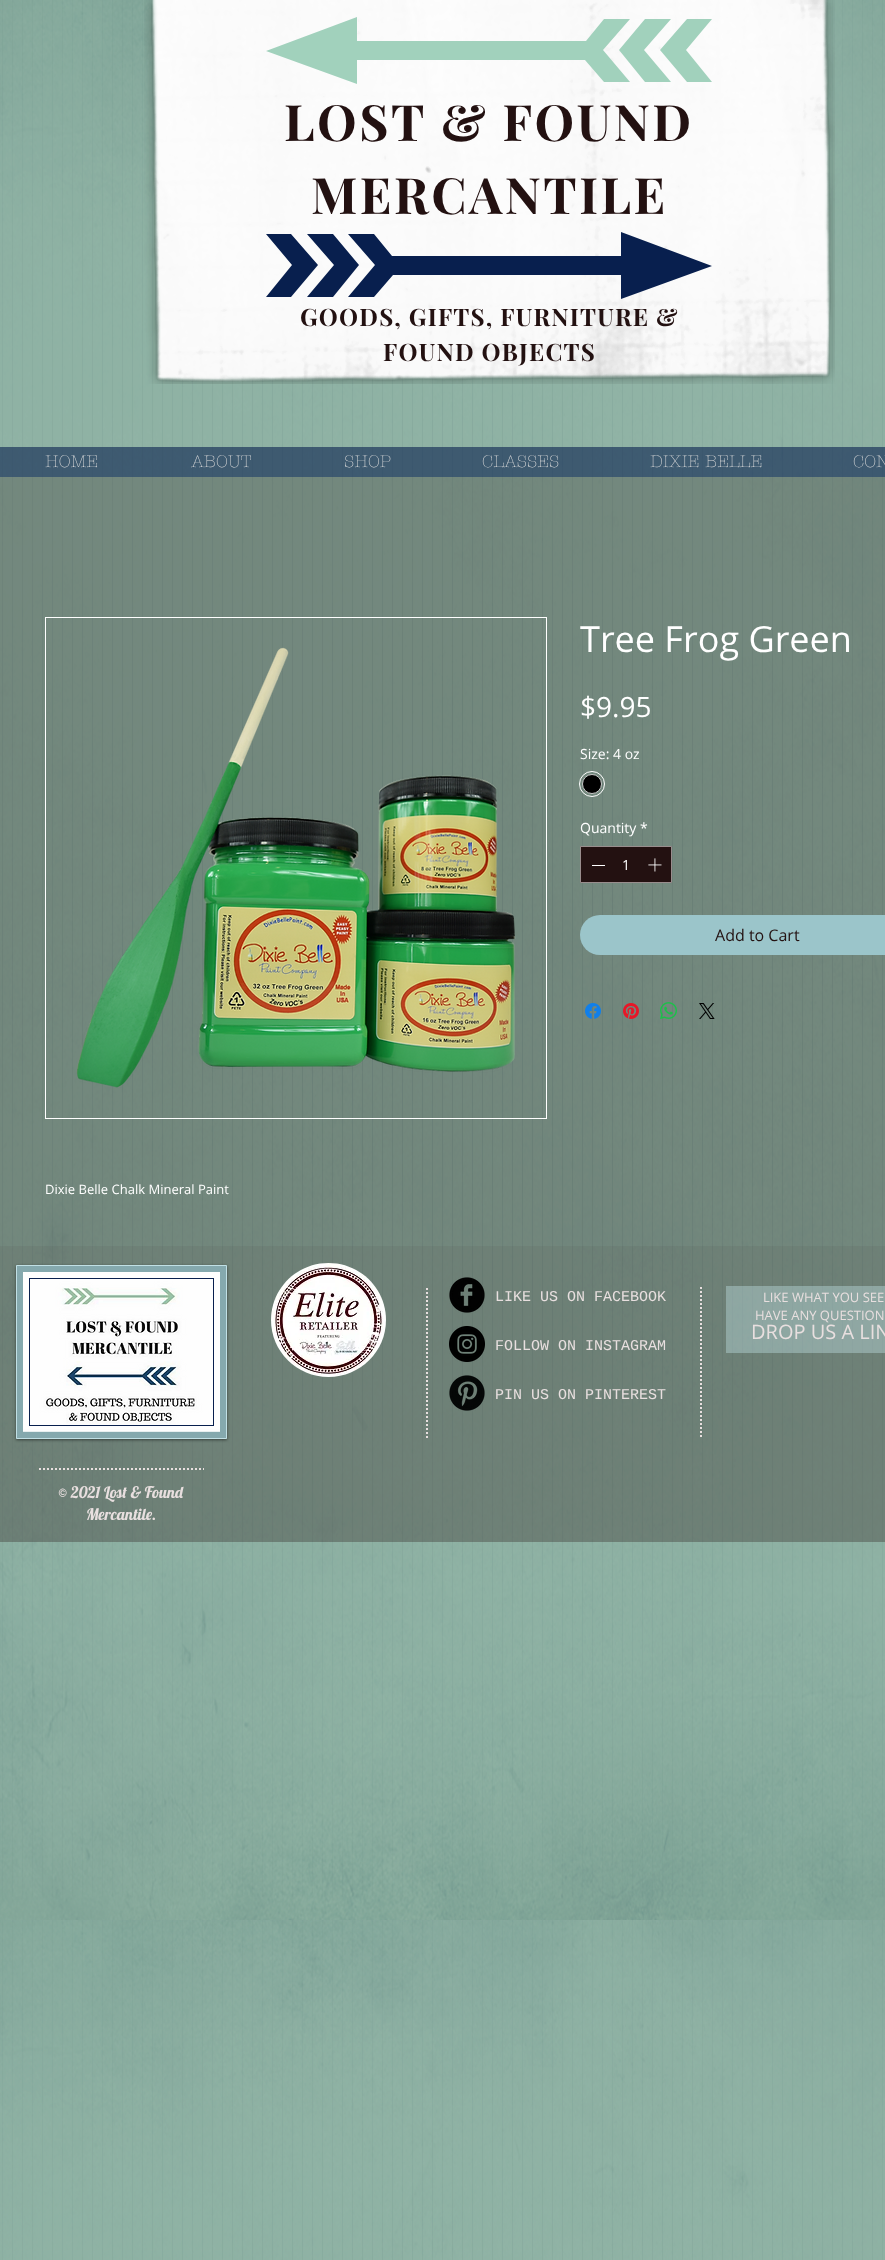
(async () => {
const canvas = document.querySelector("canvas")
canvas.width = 885
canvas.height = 2260
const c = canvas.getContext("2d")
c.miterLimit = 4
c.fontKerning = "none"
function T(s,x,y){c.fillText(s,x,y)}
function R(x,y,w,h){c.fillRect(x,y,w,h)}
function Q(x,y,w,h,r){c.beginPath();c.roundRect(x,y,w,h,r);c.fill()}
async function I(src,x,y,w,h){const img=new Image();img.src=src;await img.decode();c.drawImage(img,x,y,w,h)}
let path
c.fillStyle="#5ea6b0"
R(0,0,885,2260)
await I("1.png",0,0,885,2260)
await I("2.png",144,0,691,384)
c.fillStyle="#a1d1bc"
path = new Path2D("M266 51l91-34v24h229l18-22h26l-27 31l27 32h-26l-19-22h-228v24z")
c.fill(path)
path = new Path2D("M687 19h25l-26 31l26 32h-25l-27-32z")
c.fill(path)
path = new Path2D("M645 19h26l-27 31l27 32h-26l-26-32z")
c.fill(path)
c.letterSpacing="2.5px"
c.font="bold 50px Playfair Display"
c.fillStyle="#231111"
T("LOST & FOUND",284,141)
T("MERCANTILE",311,214)
c.fillStyle="#081f4e"
path = new Path2D("M712 266l-91-34v24h-229l-18-22h-26l27 31l-27 32h26l19-22h228v24z")
c.fill(path)
path = new Path2D("M291 234h-25l26 31l-26 32h25l27-32z")
c.fill(path)
path = new Path2D("M333 234h-26l27 31l-27 32h26l26-32z")
c.fill(path)
c.letterSpacing="1.2px"
c.font="bold 24px Playfair Display"
c.fillStyle="#231111"
T("GOODS, GIFTS, FURNITURE &",300,326)
T("FOUND OBJECTS",383,361)
c.fillStyle="#081f4e99"
R(0,447,885,30)
c.letterSpacing="0px"
c.font="300 17px 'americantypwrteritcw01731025'"
c.fillStyle="#dbdbdb"
T("HOME",45,467)
T("ABOUT",191,467)
T("SHOP",344,467)
T("CLASSES",482,467)
T("DIXIE BELLE",650,467)
T("CON",853,467)
c.fillStyle="#23111142"
R(0,477,885,769)
c.font="36px Open Sans"
c.fillStyle="#fff"
T("Tree Frog Green",580,652)
c.font="28px Open Sans"
T("$9.95",580,717)
c.font="14px Open Sans"
T("Size: 4 oz",580,759)
c.beginPath()
c.arc(592,784,12.5,0,7)
c.strokeStyle="#fff"
c.stroke()
c.fillStyle="#000"
c.beginPath()
c.arc(592,784,9.5,0,7)
c.fill()
c.strokeStyle="#c9c9c9"
c.stroke()
c.fillStyle="#fff"
T("Quantity",580,833)
T("*",640,833)
c.fillStyle="#231111"
c.beginPath()
c.rect(580.5,846.5,91,36)
c.fill()
c.strokeStyle="#998d8d"
c.stroke()
c.fillStyle="#fff"
R(592,865,13,1)
T("1",622,870)
await I("3.png",648,858,14,14)
c.fillStyle="#9bc5ca"
Q(580,915,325,40,20)
c.font="16px Open Sans"
c.fillStyle="#231111"
T("Add to Cart",715,941)
await I("4.png",585,1003,16,16)
await I("5.png",623,1003,16,16)
await I("6.png",660,1002,17,17)
await I("7.png",699,1003,16,16)
c.strokeStyle="#fff"
c.strokeRect(45.5,617.5,501,501)
await I("8.png",76,647,440,441)
c.font="13px Open Sans"
c.fillStyle="#fff"
T("Dixie Belle Chalk Mineral Paint",45,1194)
c.fillStyle="#2311114d"
R(0,1246,885,296)
c.save()
path = new Path2D("M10 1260h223v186h-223zm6 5h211v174h-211z")
c.clip(path,"evenodd")
c.fillStyle="#00000080"
c.filter="blur(1.5px)"
c.beginPath()
c.rect(16,1266,211,174)
c.fill()
c.filter="none"
c.restore()
c.fillStyle="#86abb0f5"
c.beginPath()
c.rect(16.5,1265.5,210,173)
c.fill()
c.strokeStyle="#c1e0e5"
c.stroke()
await I("9.png",23,1272,197,160)
c.strokeStyle="#081f4e"
c.strokeRect(29.5,1278.5,184,147)
await I("10.png",271,1263,115,114)
path = new Path2D("M427 1288v150")
c.strokeStyle="#e8dfdf"
c.lineWidth=2
c.setLineDash([2,2])
c.stroke(path)
await I("11.png",449,1277,36,36)
await I("12.png",449,1326,36,36)
await I("13.png",449,1375,36,36)
c.font="15px Liberation Mono"
c.fillStyle="#e8dfdf"
T("LIKE US ON FACEBOOK",495,1301)
T("FOLLOW ON INSTAGRAM",495,1350)
T("PIN US ON PINTEREST",495,1399)
path = new Path2D("M701 1287v150")
c.stroke(path)
c.fillStyle="#c1e0e566"
R(726,1286,159,67)
c.font="13px Open Sans"
c.fillStyle="#e8dfdf"
T("LIKE WHAT YOU SEE",763,1302)
T("HAVE ANY QUESTION",755,1320)
c.font="20px Open Sans"
T("DROP US A LIN",751,1339)
path = new Path2D("M39 1469h165")
c.stroke(path)
c.font="16px Lobster"
T("© 2021 Lost & Found",58,1498)
T("Mercantile.",86,1520)
})()
